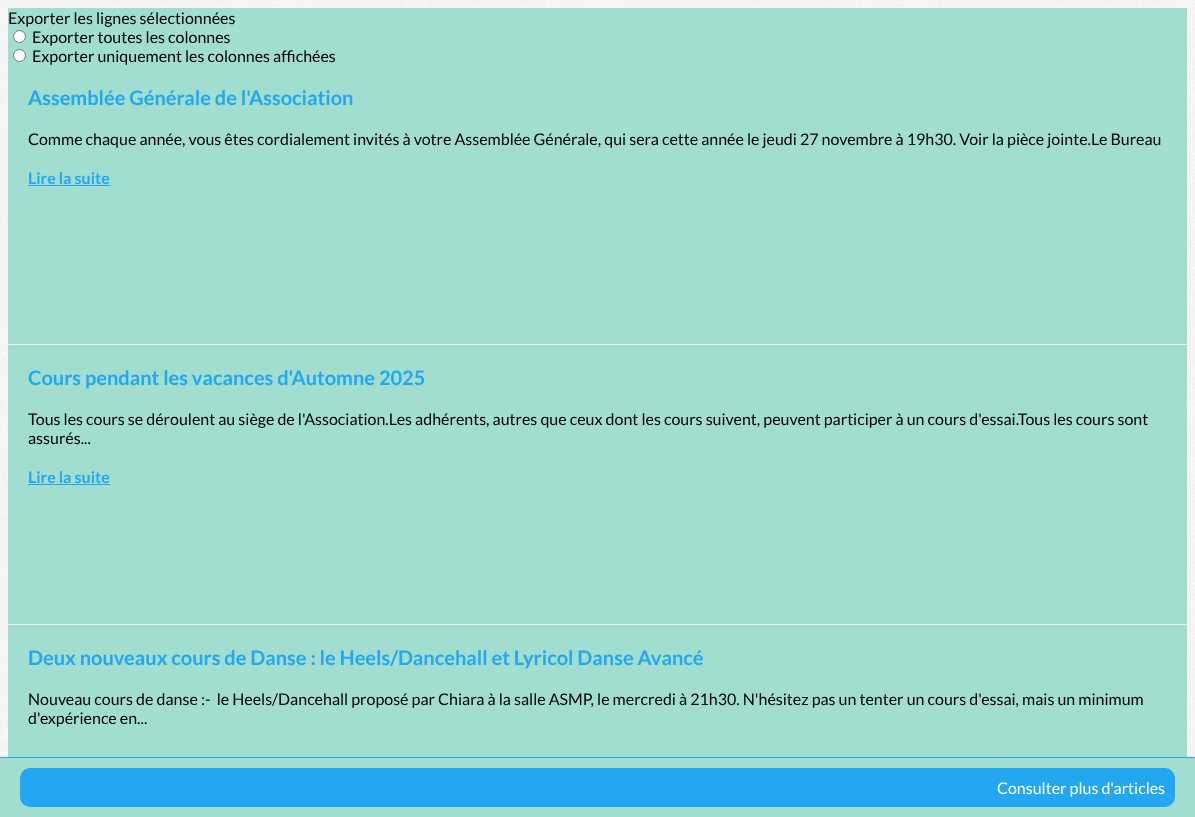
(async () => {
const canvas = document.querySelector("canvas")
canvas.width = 1195
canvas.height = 817
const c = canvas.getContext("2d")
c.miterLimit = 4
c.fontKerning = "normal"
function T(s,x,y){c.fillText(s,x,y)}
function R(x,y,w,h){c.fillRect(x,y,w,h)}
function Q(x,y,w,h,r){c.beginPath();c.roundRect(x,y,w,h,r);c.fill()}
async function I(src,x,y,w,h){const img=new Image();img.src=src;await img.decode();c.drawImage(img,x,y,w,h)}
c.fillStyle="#fff"
R(0,0,1195,817)
await I("1.png",0,0,1195,757)
c.fillStyle="#a2ded0"
R(8,8,1179,749)
c.font="16px Lato"
c.fillStyle="#000"
T("Exporter les lignes sélectionnées",8,24)
c.fillStyle="#fff"
c.beginPath()
c.arc(19.5,36.5,6,0,7)
c.fill()
c.strokeStyle="#767676"
c.stroke()
c.fillStyle="#000"
T("Exporter toutes les colonnes",32,43)
c.fillStyle="#fff"
c.beginPath()
c.arc(19.5,55.5,6,0,7)
c.fill()
c.stroke()
c.fillStyle="#000"
T("Exporter uniquement les colonnes affichées",32,62)
c.font="bold 20px Lato"
c.fillStyle="#22a7f0"
T("Assemblée Générale de l'Association",28,105)
c.font="16px Lato"
c.fillStyle="#000"
T("Comme chaque année, vous êtes cordialement invités à votre Assemblée Générale, qui sera cette année le jeudi 27 novembre à 19h30. Voir la pièce jointe.Le Bureau",28,145)
c.font="bold 16px Lato"
c.fillStyle="#22a7f0"
T("Lire la suite",28,184)
R(28,185,82,1)
c.fillStyle="#eff0f2"
R(8,344,1179,1)
c.font="bold 20px Lato"
c.fillStyle="#22a7f0"
T("Cours pendant les vacances d'Automne 2025",28,385)
c.font="16px Lato"
c.fillStyle="#000"
T("Tous les cours se déroulent au siège de l'Association.Les adhérents, autres que ceux dont les cours suivent, peuvent participer à un cours d'essai.Tous les cours sont",28,425)
T("assurés...",28,444)
c.font="bold 16px Lato"
c.fillStyle="#22a7f0"
T("Lire la suite",28,483)
R(28,484,82,1)
c.fillStyle="#eff0f2"
R(8,624,1179,1)
c.font="bold 20px Lato"
c.fillStyle="#22a7f0"
T("Deux nouveaux cours de Danse : le Heels/Dancehall et Lyricol Danse Avancé",28,665)
c.font="16px Lato"
c.fillStyle="#000"
T("Nouveau cours de danse :-  le Heels/Dancehall proposé par Chiara à la salle ASMP, le mercredi à 21h30. N'hésitez pas un tenter un cours d'essai, mais un minimum",28,705)
T("d'expérience en...",28,724)
c.fillStyle="#a2ded0"
R(0,758,1195,59)
c.fillStyle="#22a7f0"
R(0,757,1195,1)
Q(20,768,1155,39,10)
c.fillStyle="#fff"
T("Consulter plus d'articles",997,794)
})()
